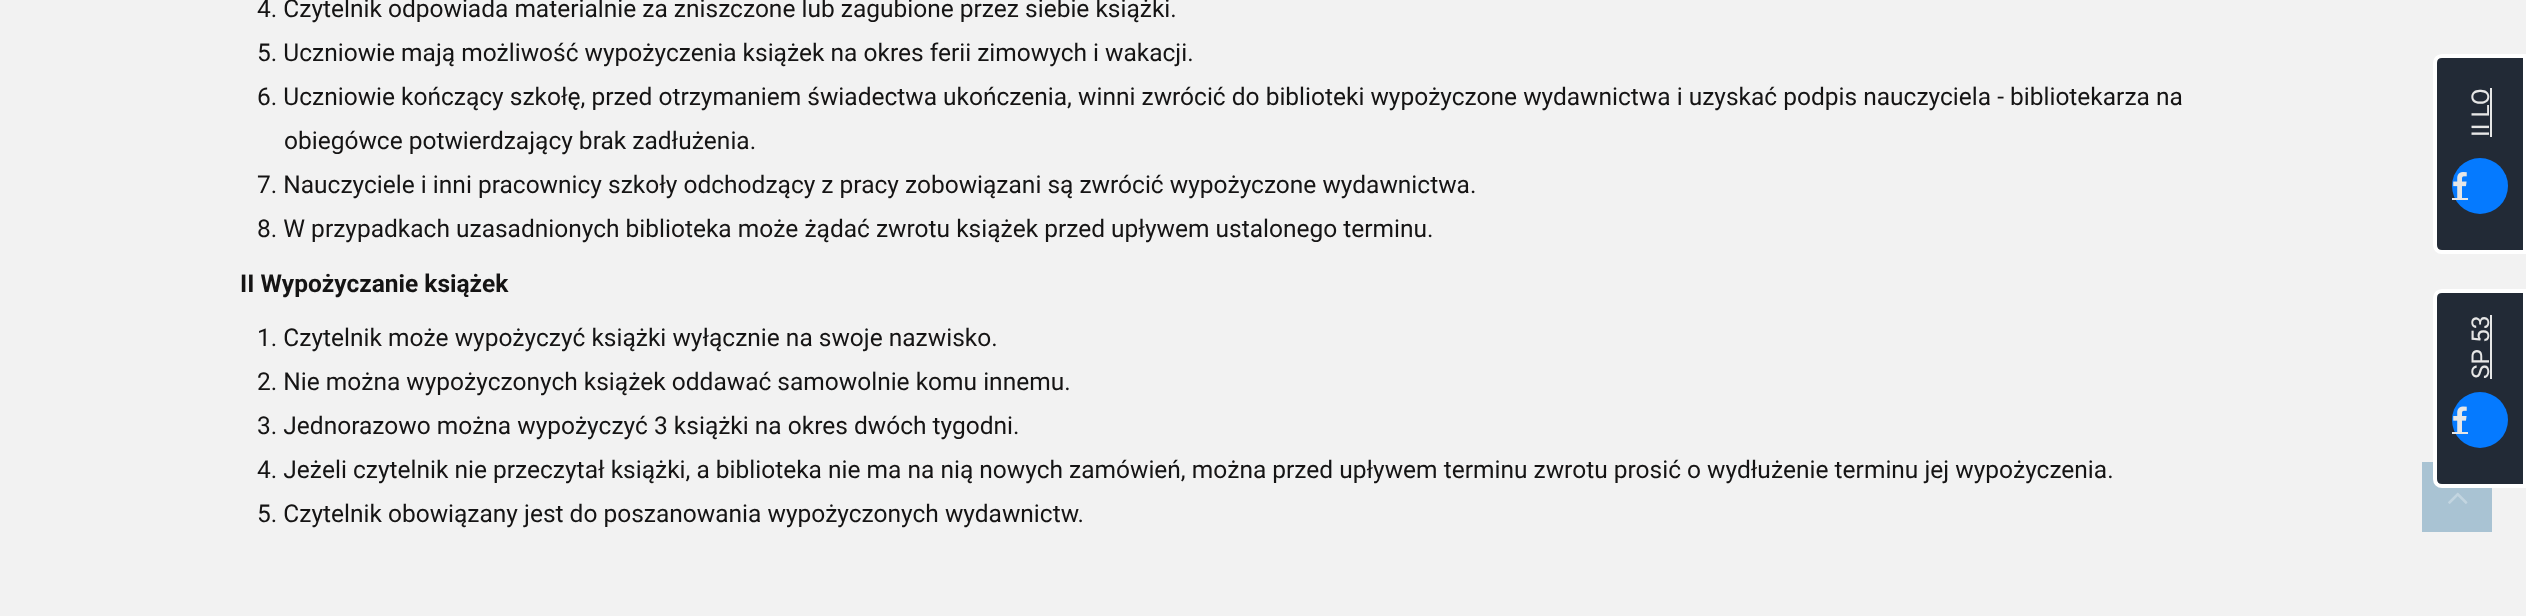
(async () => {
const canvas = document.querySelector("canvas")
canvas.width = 2526
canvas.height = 616
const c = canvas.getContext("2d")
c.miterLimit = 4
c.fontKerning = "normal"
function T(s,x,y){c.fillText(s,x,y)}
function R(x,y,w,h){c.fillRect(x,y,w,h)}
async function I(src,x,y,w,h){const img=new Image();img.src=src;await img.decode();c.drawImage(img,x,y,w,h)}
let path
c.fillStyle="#f2f2f2"
R(0,0,2526,616)
c.font="24.5px Roboto"
c.fillStyle="#151414"
T("4. Czytelnik odpowiada materialnie za zniszczone lub zagubione przez siebie książki.",257,17)
T("5. Uczniowie mają możliwość wypożyczenia książek na okres ferii zimowych i wakacji.",257,61)
T("6. Uczniowie kończący szkołę, przed otrzymaniem świadectwa ukończenia, winni zwrócić do biblioteki wypożyczone wydawnictwa i uzyskać podpis nauczyciela - bibliotekarza na",257,105)
T("obiegówce potwierdzający brak zadłużenia.",284,149)
T("7. Nauczyciele i inni pracownicy szkoły odchodzący z pracy zobowiązani są zwrócić wypożyczone wydawnictwa.",257,193)
T("8. W przypadkach uzasadnionych biblioteka może żądać zwrotu książek przed upływem ustalonego terminu.",257,237)
c.font="bold 24.5px Roboto"
T("II Wypożyczanie książek",240,292)
c.font="24.5px Roboto"
T("1. Czytelnik może wypożyczyć książki wyłącznie na swoje nazwisko.",257,346)
T("2. Nie można wypożyczonych książek oddawać samowolnie komu innemu.",257,390)
T("3. Jednorazowo można wypożyczyć 3 książki na okres dwóch tygodni.",257,434)
T("4. Jeżeli czytelnik nie przeczytał książki, a biblioteka nie ma na nią nowych zamówień, można przed upływem terminu zwrotu prosić o wydłużenie terminu jej wypożyczenia.",257,478)
T("5. Czytelnik obowiązany jest do poszanowania wypożyczonych wydawnictw.",257,522)
c.fillStyle="#222a36"
path = new Path2D("M2442 56h83v196h-83c-4 0-7-3-7-7v-182c0-4 3-7 7-7z")
c.fill(path)
c.strokeStyle="#fff"
c.lineWidth=4
c.stroke(path)
c.fillStyle="#e6e6e6"
c.save()
c.translate(2489,137)
c.rotate(-90 * Math.PI / 180)
c.fillText("II LO",0,0)
c.restore()
R(2490,88,2,49)
c.fillStyle="#057aff"
c.beginPath()
c.arc(2480,186,28,0,7)
c.fill()
await I("1.png",2453,172,14,26)
c.fillStyle="#e6e6e6"
R(2452,198,16,2)
c.fillStyle="#a9c3d3"
R(2422,462,70,70)
c.fillStyle="#222a36"
path = new Path2D("M2442 291h83v195h-83c-4 0-7-3-7-7v-181c0-4 3-7 7-7z")
c.fill(path)
c.stroke(path)
c.fillStyle="#e6e6e6"
c.save()
c.translate(2489,379)
c.rotate(-90 * Math.PI / 180)
c.fillText("SP 53",0,0)
c.restore()
R(2490,315,2,64)
c.fillStyle="#057aff"
c.beginPath()
c.arc(2480,420,28,0,7)
c.fill()
await I("2.png",2453,406,14,26)
c.fillStyle="#e6e6e6"
R(2452,432,16,2)
await I("3.png",2448,492,20,12)
})()
